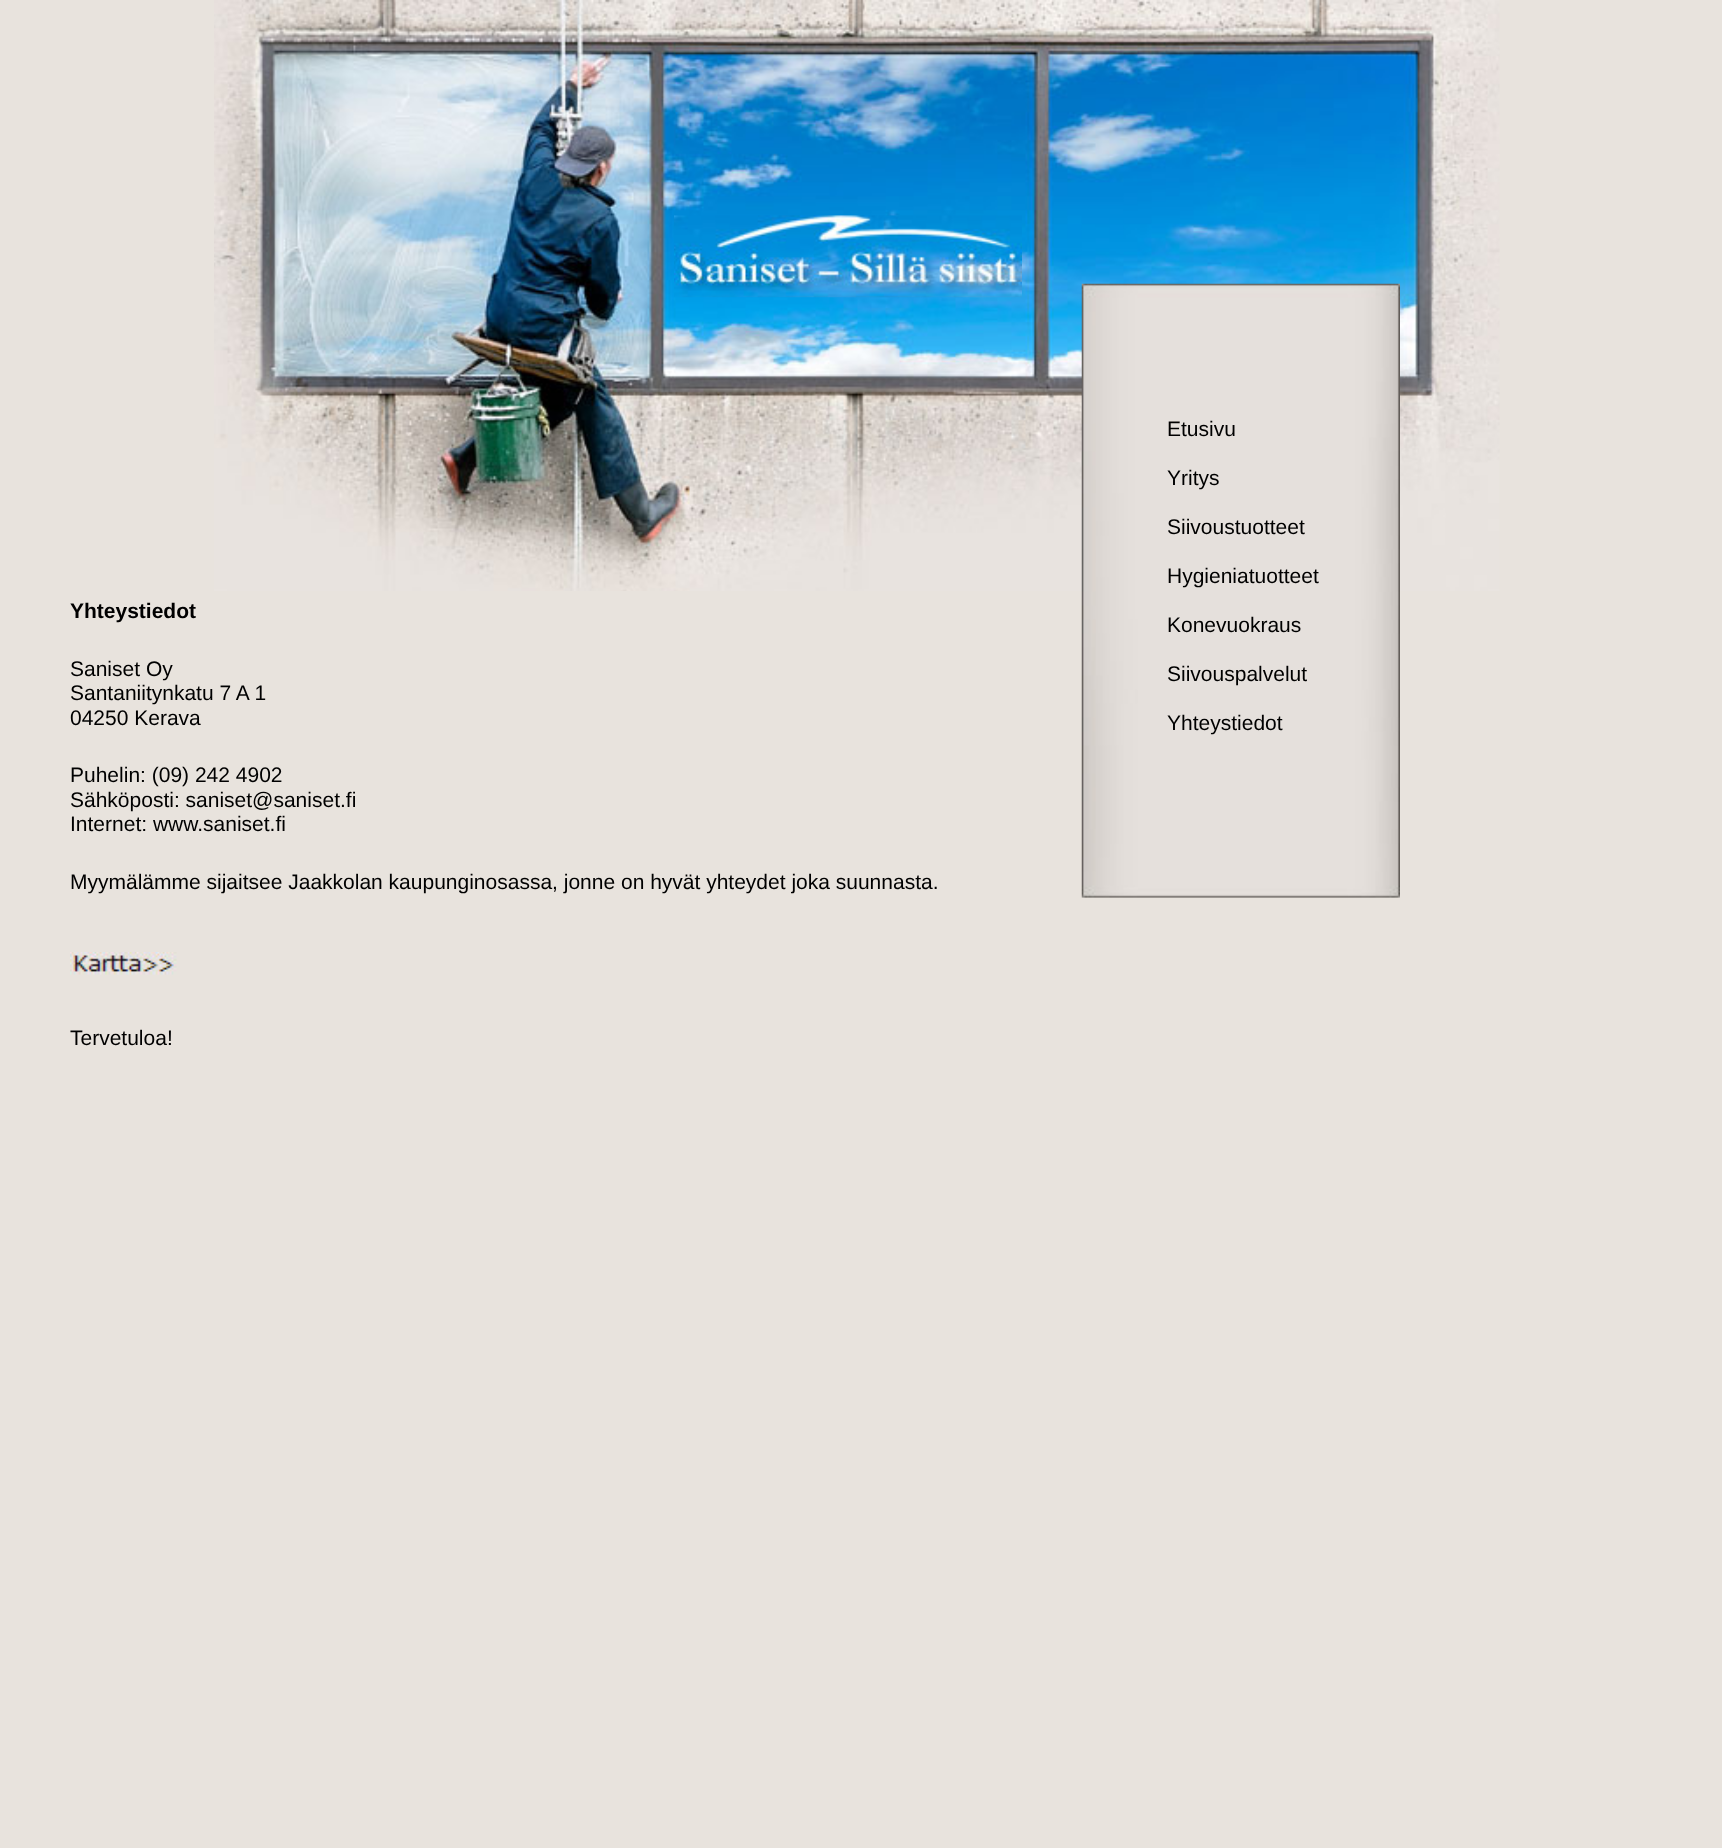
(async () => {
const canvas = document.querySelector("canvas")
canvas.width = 1722
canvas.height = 1848
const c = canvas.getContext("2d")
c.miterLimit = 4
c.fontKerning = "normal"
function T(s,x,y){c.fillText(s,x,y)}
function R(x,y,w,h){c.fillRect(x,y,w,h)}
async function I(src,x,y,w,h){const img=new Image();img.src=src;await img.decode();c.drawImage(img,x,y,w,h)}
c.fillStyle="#e8e3dd"
R(0,0,1722,1848)
await I("1.png",214,0,1286,591)
await I("2.png",674,215,348,83)
await I("3.png",1081,283,319,615)
c.font="bold 21px Liberation Sans"
c.fillStyle="#000"
T("Yhteystiedot",70,618)
c.font="21px Liberation Sans"
T("Saniset Oy",70,676)
T("Santaniitynkatu 7 A 1",70,700)
T("04250 Kerava",70,725)
T("Puhelin: (09) 242 4902",70,782)
T("Sähköposti: saniset@saniset.fi",70,807)
T("Internet: www.saniset.fi",70,831)
T("Myymälämme sijaitsee Jaakkolan kaupunginosassa, jonne on hyvät yhteydet joka suunnasta.",70,889)
T("Tervetuloa!",70,1045)
T("Etusivu",1167,436)
T("Yritys",1167,485)
T("Siivoustuotteet",1167,534)
T("Hygieniatuotteet",1167,583)
T("Konevuokraus",1167,632)
T("Siivouspalvelut",1167,681)
T("Yhteystiedot",1167,730)
await I("4.png",70,952,107,23)
})()
